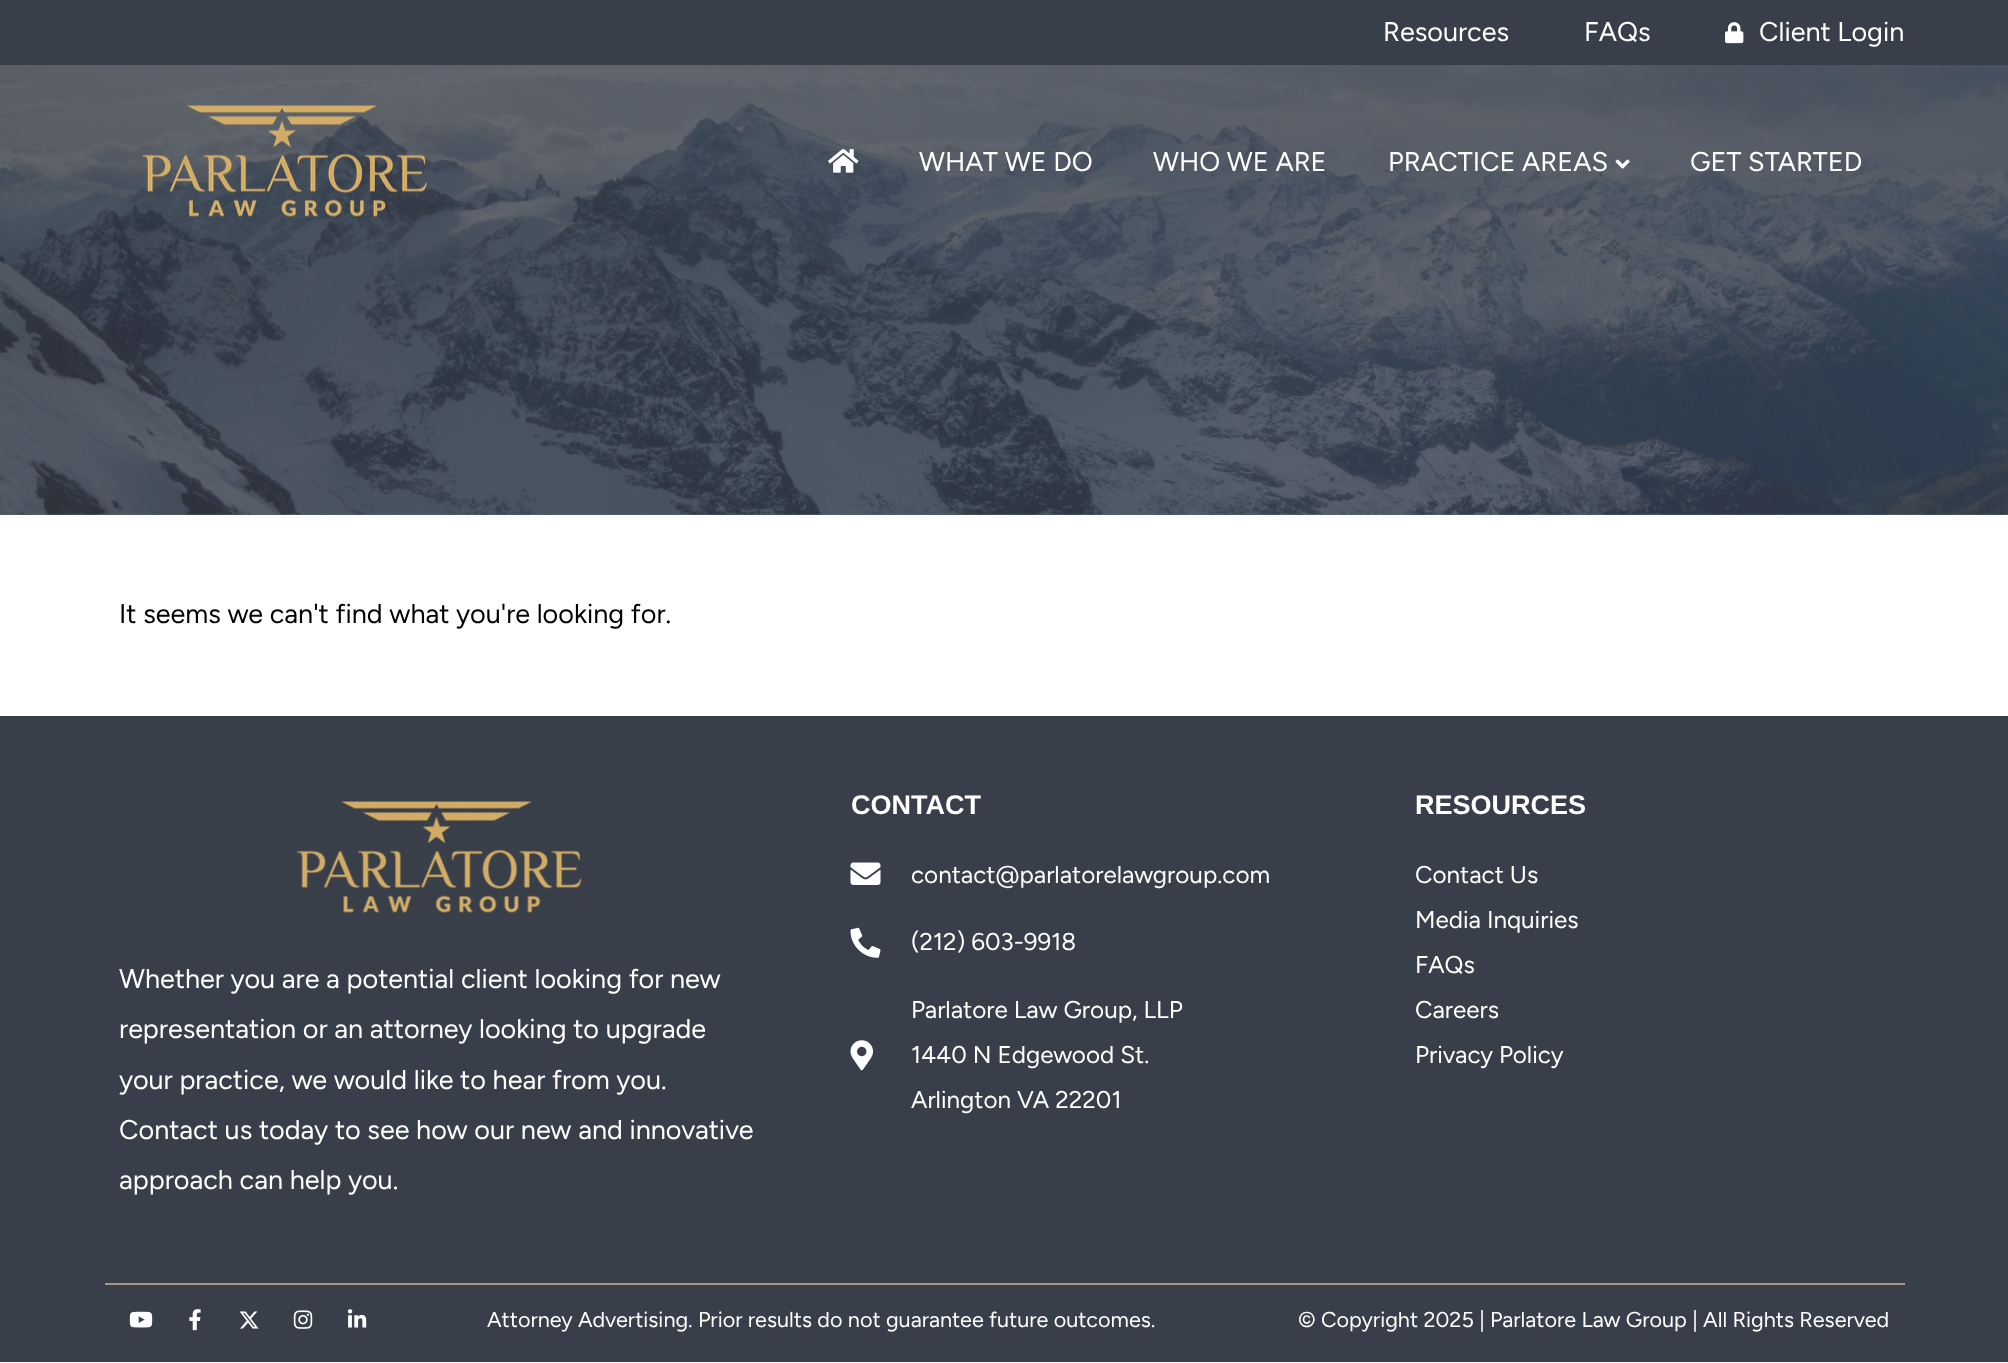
(async () => {
const canvas = document.querySelector("canvas")
canvas.width = 2008
canvas.height = 1363
const c = canvas.getContext("2d")
c.miterLimit = 4
c.fontKerning = "normal"
function T(s,x,y){c.fillText(s,x,y)}
function R(x,y,w,h){c.fillRect(x,y,w,h)}
async function I(src,x,y,w,h){const img=new Image();img.src=src;await img.decode();c.drawImage(img,x,y,w,h)}
c.fillStyle="#fff"
R(0,0,2008,1363)
c.fillStyle="#61656e"
R(0,514,2008,1)
c.fillStyle="#393f4a"
R(0,0,2008,65)
c.font="300 27px Figtree"
c.fillStyle="#fff"
T("Resources",1383,41)
T("FAQs",1584,41)
await I("1.png",1725,22,19,22)
T("Client Login",1759,41)
await I("5.png",0,65,2008,450)
await I("2.png",142,104,285,113)
await I("3.png",828,149,31,24)
T("WHAT WE DO",919,171)
T("WHO WE ARE",1153,171)
T("PRACTICE AREAS",1388,171)
await I("4.png",1615,159,15,10)
T("GET STARTED",1690,171)
c.fillStyle="#000"
T("It seems we can't find what you're looking for.",119,623)
c.fillStyle="#393f4a"
R(0,716,2008,646)
await I("6.png",296,801,286,112)
c.fillStyle="#fff"
T("Whether you are a potential client looking for new",119,988)
T("representation or an attorney looking to upgrade",119,1038)
T("your practice, we would like to hear from you.",119,1089)
T("Contact us today to see how our new and innovative",119,1139)
T("approach can help you.",119,1189)
c.font="bold 27px Liberation Sans"
T("CONTACT",851,814)
await I("7.png",850,862,31,23)
c.font="300 24.25px Figtree"
T("contact@parlatorelawgroup.com",911,883)
await I("8.png",850,927,31,31)
T("(212) 603-9918",911,950)
await I("9.png",850,1040,23,31)
T("Parlatore Law Group, LLP",911,1018)
T("1440 N Edgewood St.",911,1063)
T("Arlington VA 22201",911,1108)
c.font="bold 27px Liberation Sans"
T("RESOURCES",1415,814)
c.font="300 24.25px Figtree"
T("Contact Us",1415,883)
T("Media Inquiries",1415,928)
T("FAQs",1415,973)
T("Careers",1415,1018)
T("Privacy Policy",1415,1063)
c.fillStyle="#ad9580"
R(105,1283,1800,2)
await I("10.png",129,1311,24,17)
await I("11.png",189,1309,12,22)
await I("12.png",239,1311,20,18)
await I("13.png",293,1310,20,19)
await I("14.png",347,1309,20,19)
c.font="300 21.6px Figtree"
c.fillStyle="#fff"
T("Attorney Advertising. Prior results do not guarantee future outcomes.",487,1327)
T("© Copyright 2025 | Parlatore Law Group | All Rights Reserved",1298,1327)
})()
